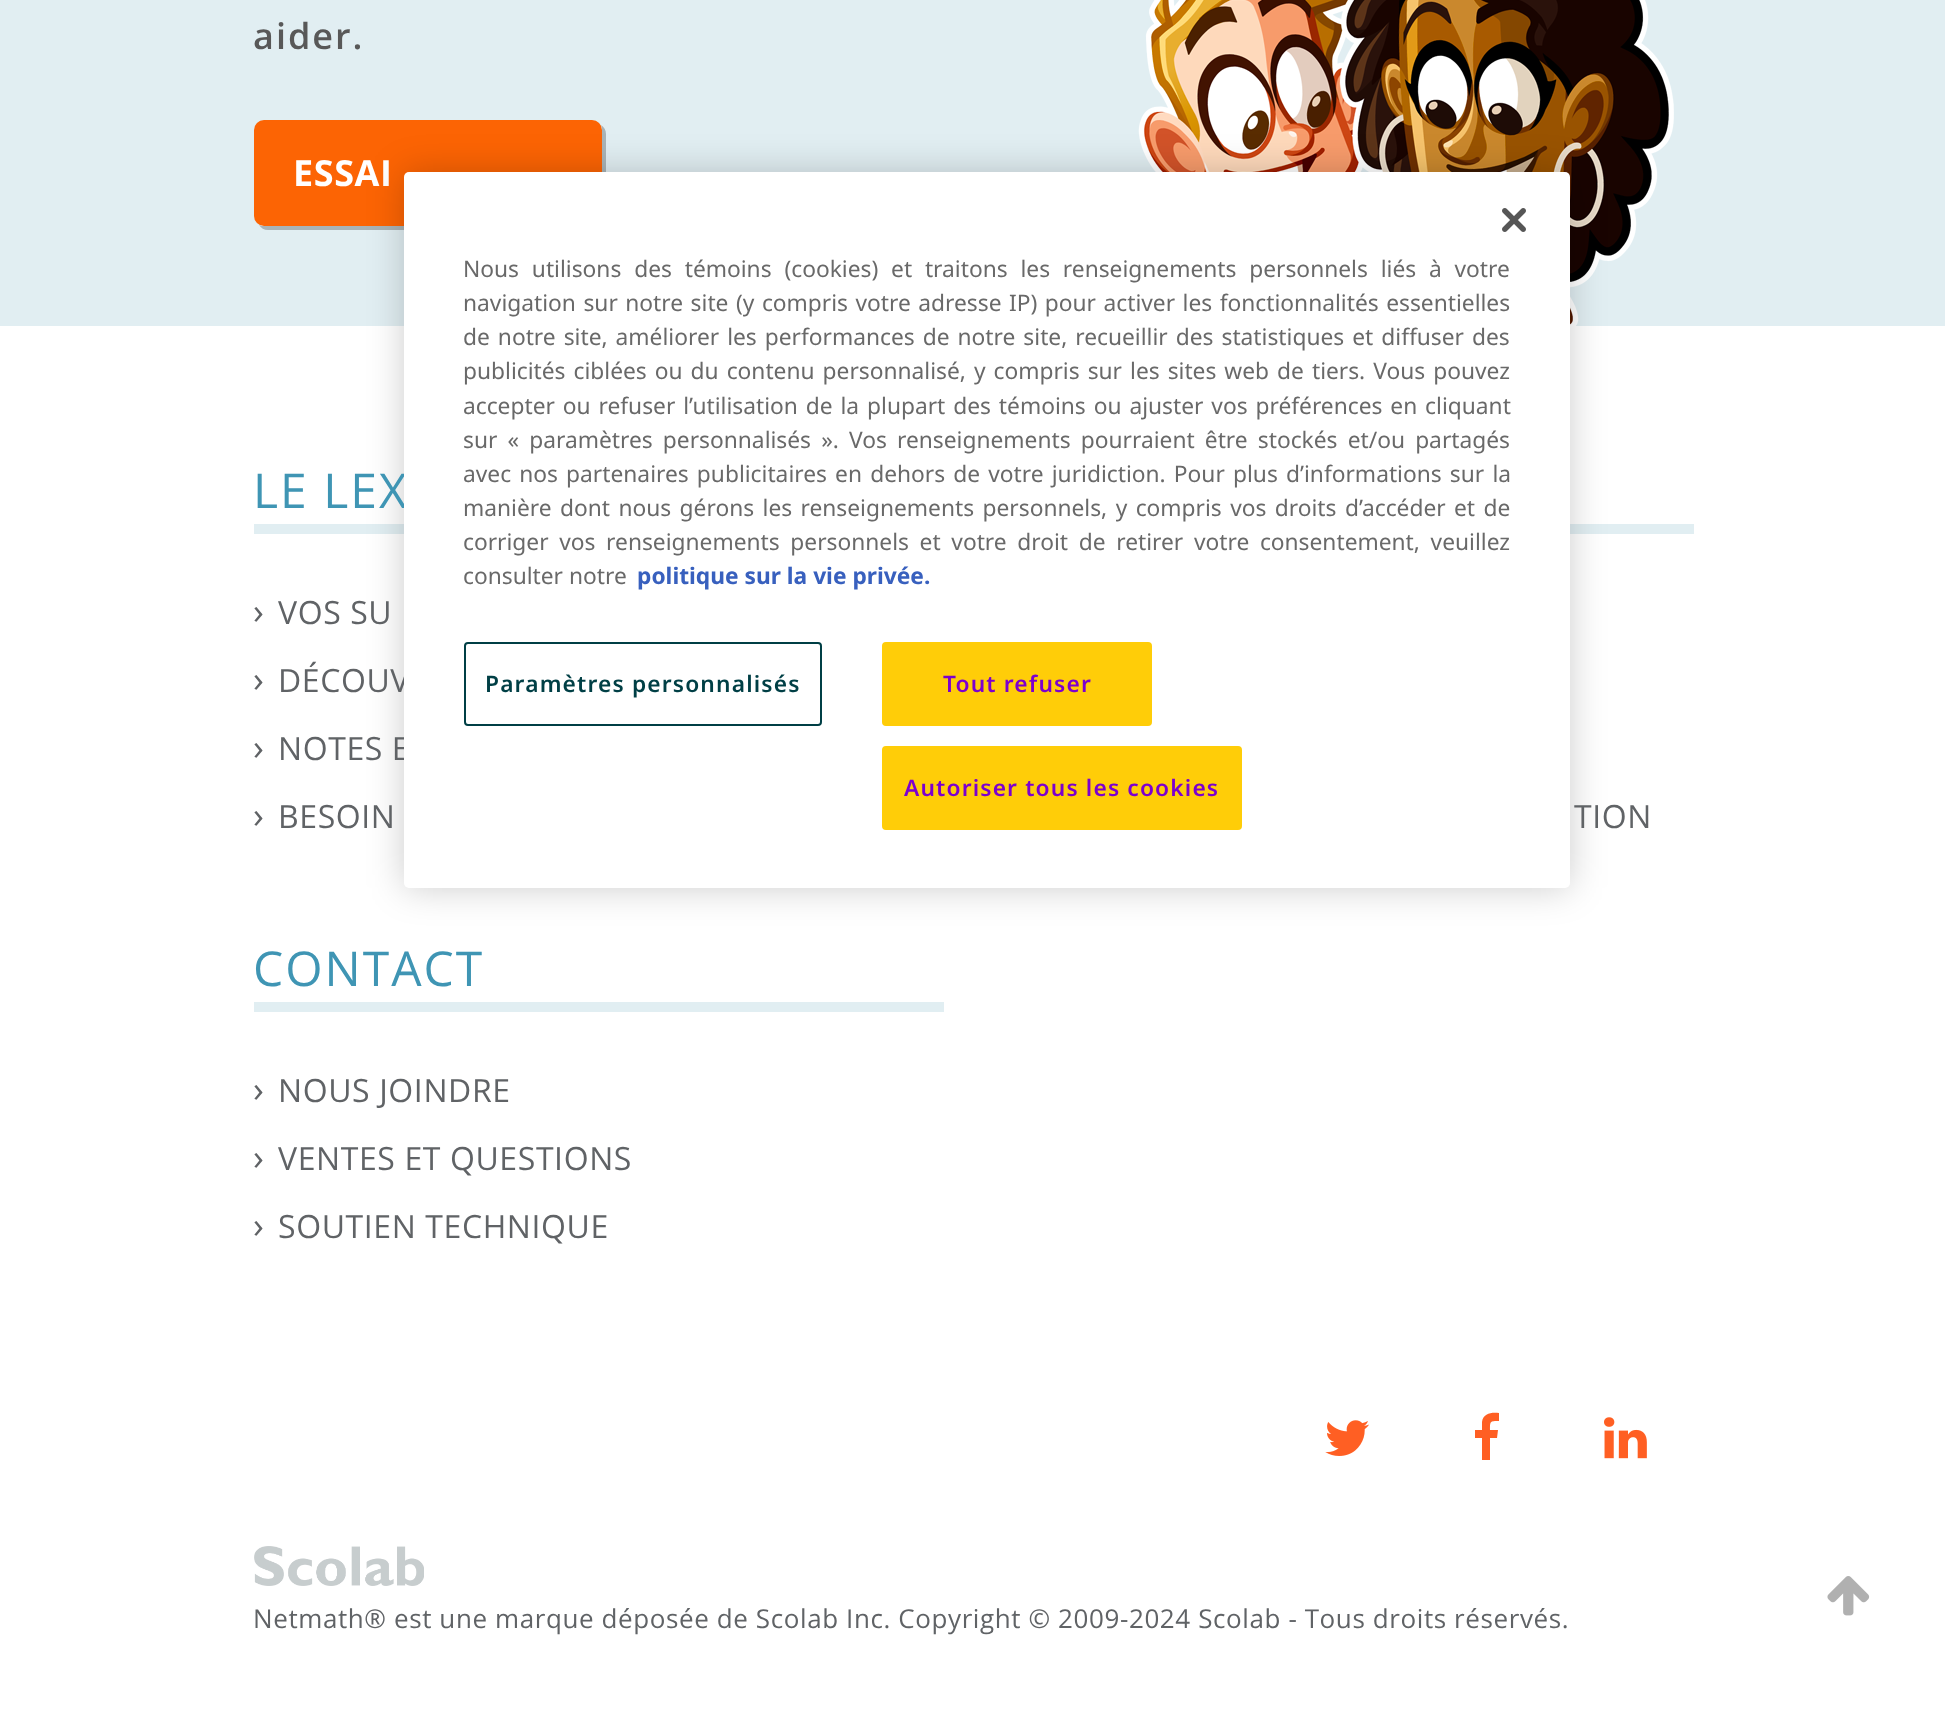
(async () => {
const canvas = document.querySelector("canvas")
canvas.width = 1945
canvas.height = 1709
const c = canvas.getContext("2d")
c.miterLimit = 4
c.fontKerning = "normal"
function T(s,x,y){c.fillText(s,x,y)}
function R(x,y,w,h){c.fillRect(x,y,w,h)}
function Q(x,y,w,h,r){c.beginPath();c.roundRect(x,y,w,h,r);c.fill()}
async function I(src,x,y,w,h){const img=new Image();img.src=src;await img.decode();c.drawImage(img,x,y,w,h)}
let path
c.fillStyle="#fff"
R(0,0,1945,1709)
c.fillStyle="#e1eef2"
R(0,0,1945,326)
c.letterSpacing="2px"
c.font="600 36px Open Sans"
c.fillStyle="#585858"
T("aider.",253,49)
await I("1.png",1138,0,536,326)
c.fillStyle="#a9b3b6"
path = new Path2D("M259 225c2 3 5 5 9 5h328c6 0 10-4 10-10v-86c0-4-2-7-5-9c1 2 1 3 1 5v86c0 6-4 10-10 10h-328c-2 0-3 0-5-1z")
c.fill(path)
c.fillStyle="#fc6404"
Q(254,120,348,106,10)
c.letterSpacing="0.6px"
c.font="bold 36px Open Sans"
c.fillStyle="#fff"
T("ESSAI",293,186)
c.fillStyle="#e1eef2"
R(254,524,150,10)
R(1570,524,124,10)
c.fillStyle="#00000033"
c.filter="blur(18px)"
c.beginPath()
c.roundRect(404,172,1166,716,5)
c.fill()
c.filter="none"
c.letterSpacing="2px"
c.font="48px Open Sans"
c.fillStyle="#3f95b4"
T("LE LEX",253,508)
c.letterSpacing="0.6px"
c.font="32px Open Sans"
c.fillStyle="#606366"
T("DÉCOUV",278,692)
T("NOTES E",278,760)
c.fillStyle="#fff"
Q(404,172,1166,716,5)
await I("2.png",1502,208,24,24)
c.letterSpacing="0px"
c.wordSpacing="6.9px"
c.font="22.75px Noto Sans"
c.fillStyle="#696969"
T("Nous utilisons des témoins (cookies) et traitons les renseignements personnels liés à votre",463,277)
c.wordSpacing="1.6px"
T("navigation sur notre site (y compris votre adresse IP) pour activer les fonctionnalités essentielles",463,311)
c.wordSpacing="2.1px"
T("de notre site, améliorer les performances de notre site, recueillir des statistiques et diffuser des",463,345)
T("publicités ciblées ou du contenu personnalisé, y compris sur les sites web de tiers. Vous pouvez",463,379)
c.wordSpacing="2px"
T("accepter ou refuser l’utilisation de la plupart des témoins ou ajuster vos préférences en cliquant",463,414)
c.wordSpacing="4.25px"
T("sur « paramètres personnalisés ». Vos renseignements pourraient être stockés et/ou partagés",463,448)
c.wordSpacing="2.25px"
T("avec nos partenaires publicitaires en dehors de votre juridiction. Pour plus d’informations sur la",463,482)
c.wordSpacing="2.5px"
T("manière dont nous gérons les renseignements personnels, y compris vos droits d’accéder et de",463,516)
c.wordSpacing="4.75px"
T("corriger vos renseignements personnels et votre droit de retirer votre consentement, veuillez",463,550)
c.wordSpacing="0px"
T("consulter notre",463,584)
c.font="bold 22.75px Noto Sans"
c.fillStyle="#3860be"
T("politique sur la vie privée.",637,584)
c.beginPath()
c.roundRect(465,643,356,82,3)
c.strokeStyle="#003f45"
c.lineWidth=2
c.stroke()
c.letterSpacing="1.15px"
c.font="600 22.75px Noto Sans"
c.fillStyle="#003f45"
T("Paramètres personnalisés",485,692)
c.fillStyle="#ffcd08"
c.beginPath()
c.roundRect(883,643,268,82,3)
c.fill()
c.strokeStyle="#ffcd08"
c.stroke()
c.fillStyle="#7d00ce"
T("Tout refuser",943,692)
c.fillStyle="#ffcd08"
c.beginPath()
c.roundRect(883,747,358,82,3)
c.fill()
c.stroke()
c.fillStyle="#7d00ce"
T("Autoriser tous les cookies",904,796)
c.letterSpacing="0.6px"
c.font="36px Open Sans"
c.fillStyle="#606366"
T("›",253,624)
c.font="32px Open Sans"
T("VOS SU",278,624)
c.font="36px Open Sans"
T("›",253,692)
T("›",253,760)
T("›",253,828)
c.font="32px Open Sans"
T("BESOIN",278,828)
T("TION",1574,828)
c.fillStyle="#e1eef2"
R(254,1002,690,10)
c.letterSpacing="2px"
c.font="48px Open Sans"
c.fillStyle="#3f95b4"
T("CONTACT",253,986)
c.letterSpacing="0.6px"
c.font="36px Open Sans"
c.fillStyle="#606366"
T("›",253,1102)
c.font="32px Open Sans"
T("NOUS JOINDRE",278,1102)
c.font="36px Open Sans"
T("›",253,1170)
c.font="32px Open Sans"
T("VENTES ET QUESTIONS",278,1170)
c.font="36px Open Sans"
T("›",253,1238)
c.font="32px Open Sans"
T("SOUTIEN TECHNIQUE",278,1238)
await I("3.png",1325,1420,44,36)
c.fillStyle="#ff5f23"
path = new Path2D("M1499 1413v8c-9 0-9 0-9 9h8l-1 8h-7v22h-8v-22h-7v-8h7v-8c1-9 10-10 17-9z")
c.fill(path)
await I("4.png",1604,1417,43,42)
await I("5.png",254,1546,170,40)
c.font="26px Open Sans"
c.fillStyle="#606366"
T("Netmath® est une marque déposée de Scolab Inc. Copyright © 2009-2024 Scolab - Tous droits réservés.",253,1628)
await I("6.png",1827,1576,43,40)
})()
